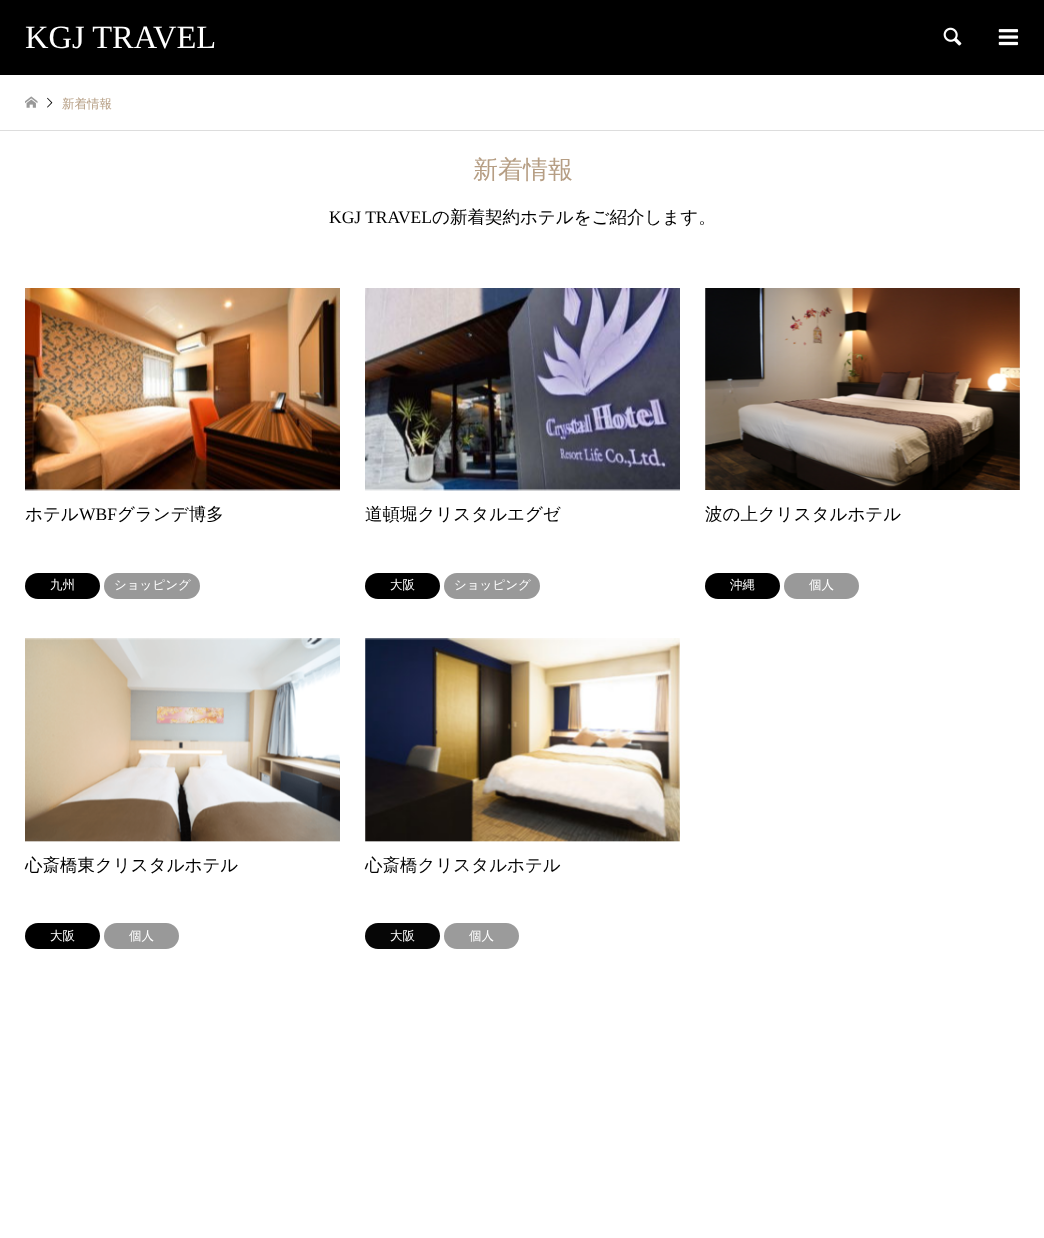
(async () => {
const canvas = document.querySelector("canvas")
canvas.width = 1044
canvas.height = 1238
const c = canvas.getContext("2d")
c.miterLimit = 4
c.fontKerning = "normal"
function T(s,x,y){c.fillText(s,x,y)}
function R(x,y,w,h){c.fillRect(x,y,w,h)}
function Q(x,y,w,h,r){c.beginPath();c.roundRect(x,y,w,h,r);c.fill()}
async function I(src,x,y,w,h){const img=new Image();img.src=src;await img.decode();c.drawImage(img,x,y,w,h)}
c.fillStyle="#fff"
R(0,0,1044,1238)
c.fillStyle="#000"
R(0,0,1044,75)
c.font="32.5px Liberation Serif"
c.fillStyle="#fff"
T("KGJ TRAVEL",25,48)
await I("1.png",943,27,19,19)
await I("2.png",998,29,21,17)
c.fillStyle="#ddd"
R(0,130,1044,1)
await I("3.png",25,96,13,12)
await I("4.png",47,97,6,11)
c.font="500 12.5px WenQuanYi Zen Hei"
c.fillStyle="#b69e84"
T("新着情報",62,108)
c.font="500 25px WenQuanYi Zen Hei"
T("新着情報",473,178)
c.font="17.5px Liberation Serif"
c.fillStyle="#000"
T("KGJ TRAVEL",329,223)
c.font="500 17.5px WenQuanYi Zen Hei"
T("の新着契約ホテルをご紹介します。",432,223)
await I("5.png",25,288,315,203)
T("ホテル",25,520)
c.font="17.5px Liberation Serif"
T("WBF",79,520)
c.font="500 17.5px WenQuanYi Zen Hei"
T("グランデ博多",117,520)
Q(25,573,75,26,13)
c.font="500 12.5px WenQuanYi Zen Hei"
c.fillStyle="#fff"
T("九州",50,589)
c.fillStyle="#999"
Q(104,573,96,26,13)
c.fillStyle="#fff"
T("ショッピング",114,589)
await I("6.png",365,288,315,203)
c.font="500 17.5px WenQuanYi Zen Hei"
c.fillStyle="#000"
T("道頓堀クリスタルエグゼ",365,520)
Q(365,573,75,26,13)
c.font="500 12.5px WenQuanYi Zen Hei"
c.fillStyle="#fff"
T("大阪",390,589)
c.fillStyle="#999"
Q(444,573,96,26,13)
c.fillStyle="#fff"
T("ショッピング",454,589)
await I("7.png",705,288,315,202)
c.font="500 17.5px WenQuanYi Zen Hei"
c.fillStyle="#000"
T("波の上クリスタルホテル",705,520)
Q(705,573,75,26,13)
c.font="500 12.5px WenQuanYi Zen Hei"
c.fillStyle="#fff"
T("沖縄",730,589)
c.fillStyle="#999"
Q(784,573,75,26,13)
c.fillStyle="#fff"
T("個人",809,589)
await I("8.png",25,638,315,204)
c.font="500 17.5px WenQuanYi Zen Hei"
c.fillStyle="#000"
T("心斎橋東クリスタルホテル",25,871)
Q(25,923,75,26,13)
c.font="500 12.5px WenQuanYi Zen Hei"
c.fillStyle="#fff"
T("大阪",50,940)
c.fillStyle="#999"
Q(104,923,75,26,13)
c.fillStyle="#fff"
T("個人",129,940)
await I("9.png",365,638,315,204)
c.font="500 17.5px WenQuanYi Zen Hei"
c.fillStyle="#060606"
T("心斎橋クリスタルホテル",365,871)
Q(365,923,75,26,13)
c.font="500 12.5px WenQuanYi Zen Hei"
c.fillStyle="#fff"
T("大阪",390,940)
c.fillStyle="#9b9b9b"
Q(444,923,75,26,13)
c.fillStyle="#fff"
T("個人",469,940)
})()
